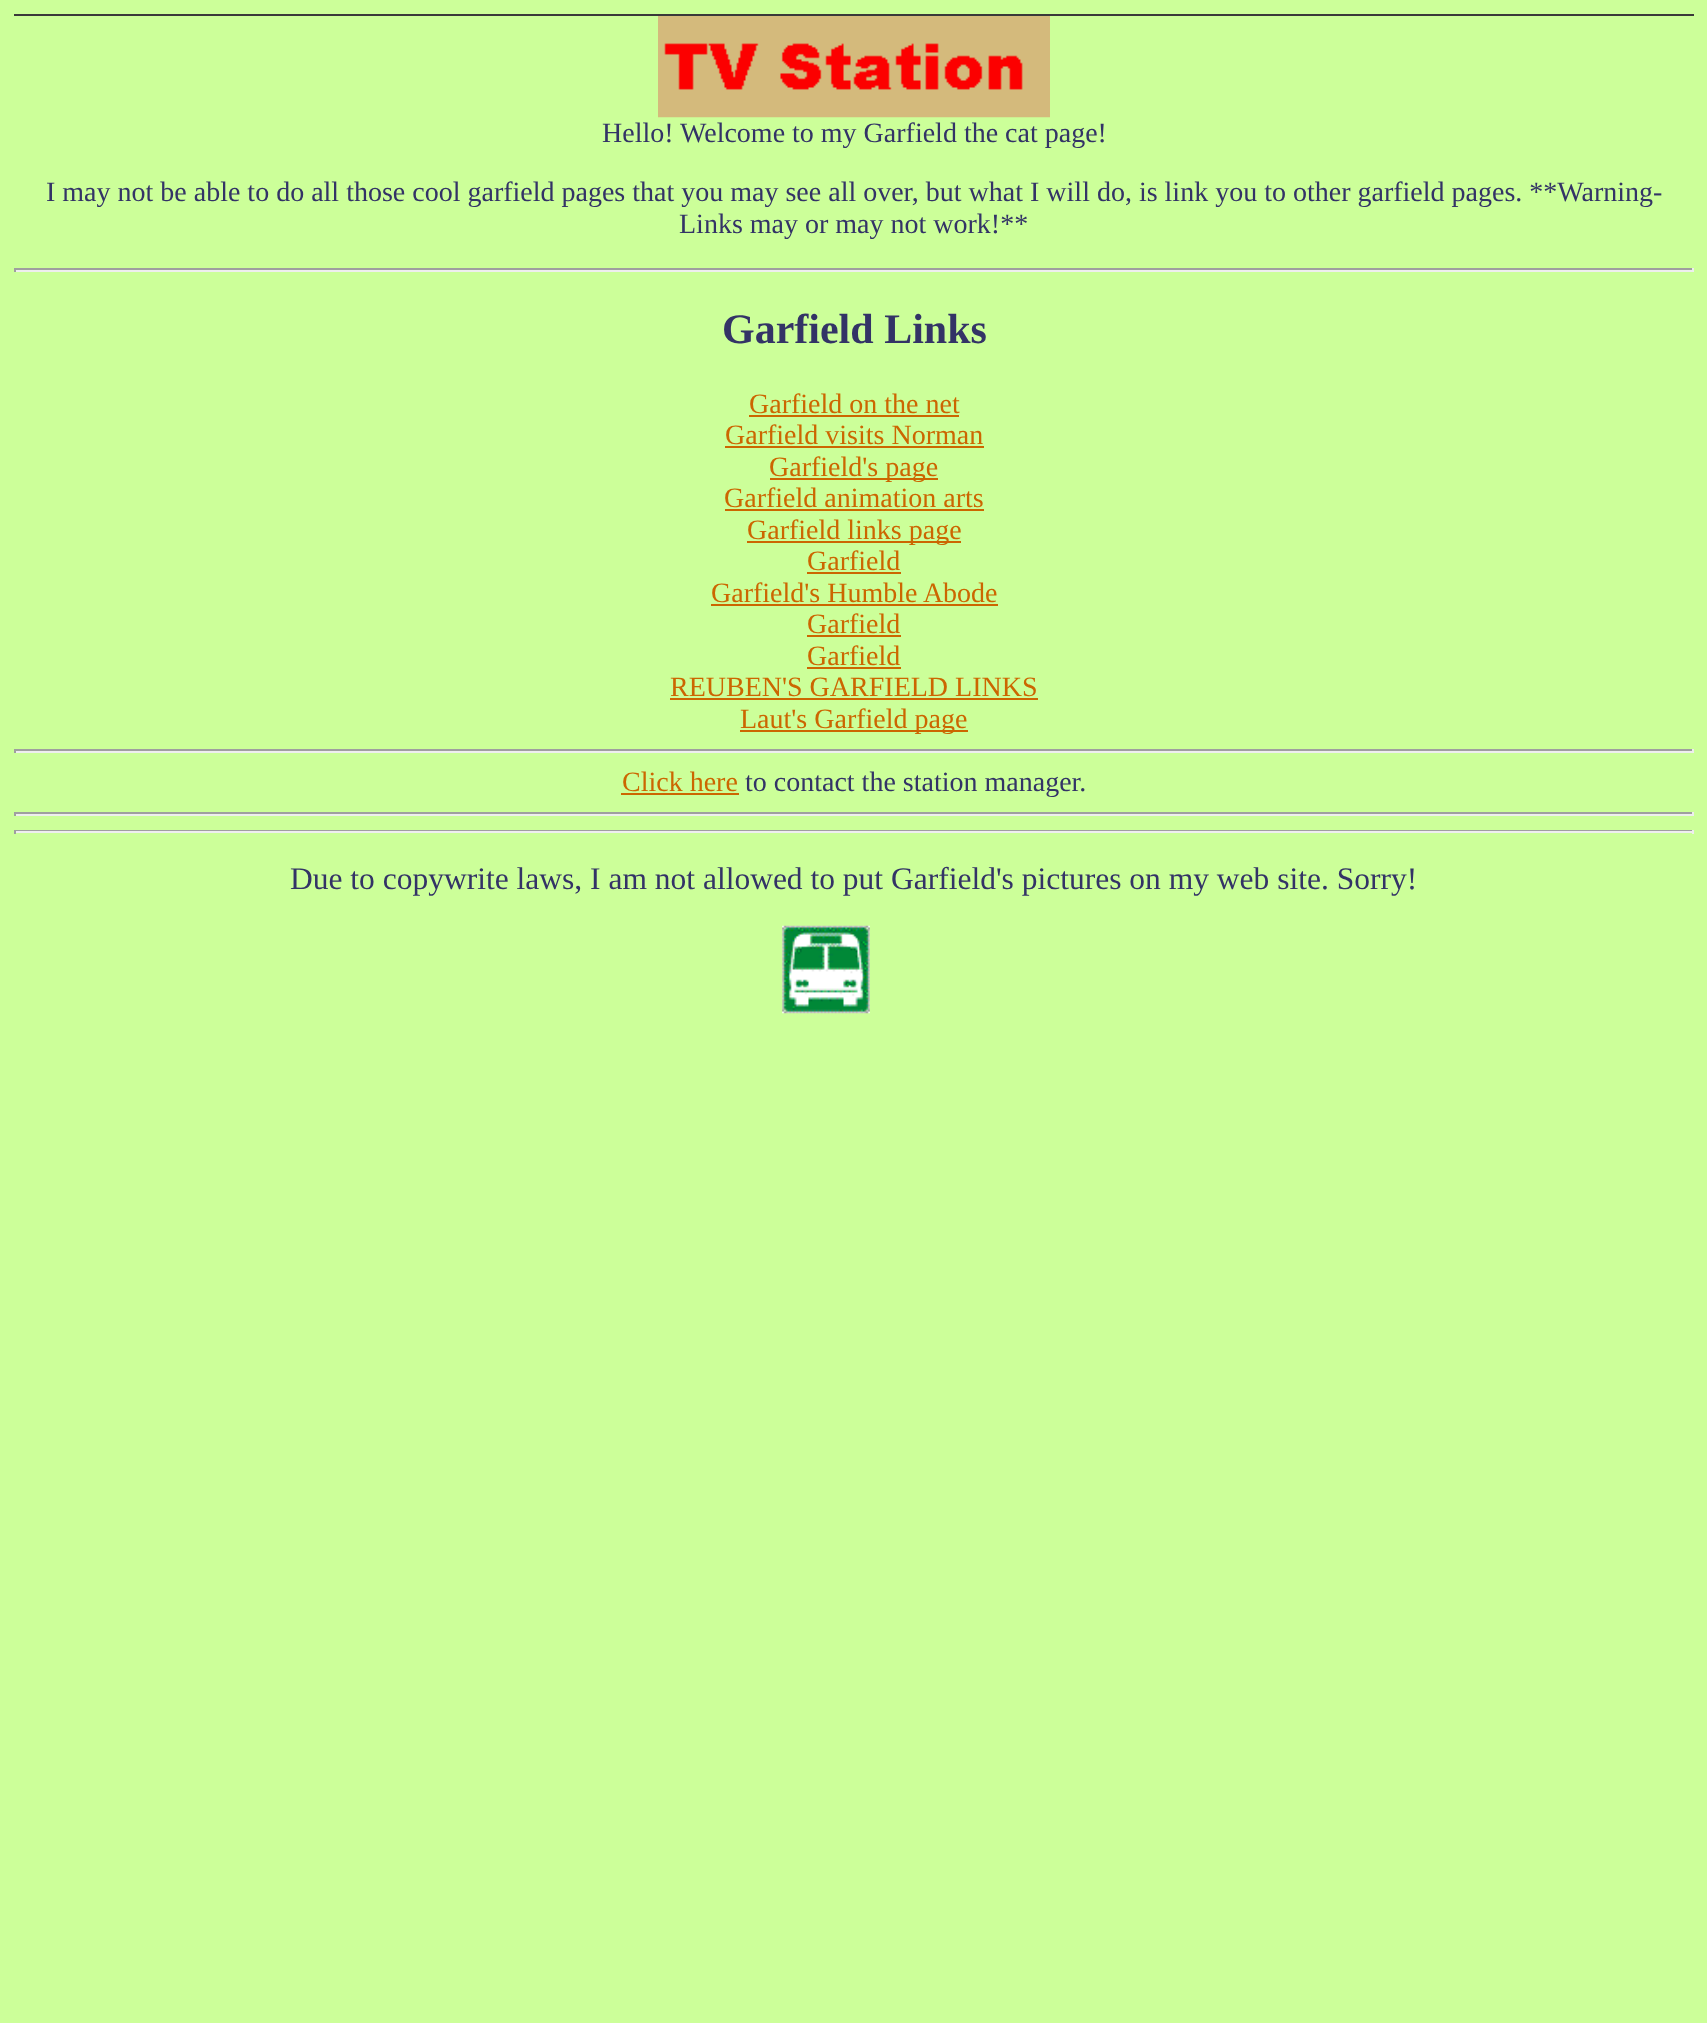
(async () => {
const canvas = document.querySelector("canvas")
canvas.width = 1707
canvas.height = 2023
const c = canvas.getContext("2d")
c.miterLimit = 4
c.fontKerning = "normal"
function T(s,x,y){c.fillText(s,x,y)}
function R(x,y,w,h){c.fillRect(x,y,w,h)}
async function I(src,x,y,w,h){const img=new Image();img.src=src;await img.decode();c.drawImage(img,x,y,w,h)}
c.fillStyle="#cf9"
R(0,0,1707,2023)
c.fillStyle="#393939"
R(14,14,1680,2)
await I("1.png",658,16,392,102)
c.font="28px Liberation Serif"
c.fillStyle="#336"
T("Hello! Welcome to my Garfield the cat page!",602,142)
T("I may not be able to do all those cool garfield pages that you may see all over, but what I will do, is link you to other garfield pages. **Warning-",46,201)
T("Links may or may not work!**",679,233)
c.fillStyle="#9f9f9f"
R(14,268,1680,2)
c.fillStyle="#eee"
R(1692,268,2,4)
R(14,270,1680,2)
c.fillStyle="#9f9f9f"
R(14,268,2,4)
c.font="bold 42px Liberation Serif"
c.fillStyle="#336"
T("Garfield Links",722,343)
c.font="28px Liberation Serif"
c.fillStyle="#c60"
T("Garfield on the net",749,413)
R(749,415,210,2)
T("Garfield visits Norman",725,444)
R(725,446,259,2)
R(770,478,168,2)
T("Garfield's page",769,476)
T("Garfield animation arts",724,507)
R(725,509,259,2)
R(747,541,214,2)
T("Garfield links page",747,539)
T("Garfield",807,570)
R(807,572,94,2)
T("Garfield's Humble Abode",711,602)
R(711,604,287,2)
T("Garfield",807,633)
R(807,635,94,2)
T("Garfield",807,665)
R(807,667,94,2)
T("REUBEN'S GARFIELD LINKS",670,696)
R(670,698,368,2)
R(740,730,228,2)
T("Laut's Garfield page",740,728)
c.fillStyle="#9f9f9f"
R(14,749,1680,2)
c.fillStyle="#eee"
R(1692,749,2,4)
R(14,751,1680,2)
c.fillStyle="#9f9f9f"
R(14,749,2,4)
c.fillStyle="#c60"
T("Click here",622,791)
R(621,793,118,2)
c.fillStyle="#336"
T("to contact the station manager.",745,791)
c.fillStyle="#9f9f9f"
R(14,812,1680,2)
c.fillStyle="#eee"
R(1692,812,2,4)
R(14,814,1680,2)
c.fillStyle="#9f9f9f"
R(14,812,2,4)
R(14,830,1680,1)
c.fillStyle="#eee"
R(1692,830,2,4)
R(14,831,1680,2)
c.fillStyle="#9f9f9f"
R(14,830,2,4)
c.font="31.5px Liberation Serif"
c.fillStyle="#336"
T("Due to copywrite laws, I am not allowed to put Garfield's pictures on my web site. Sorry!",290,889)
await I("2.png",782,925,88,89)
})()
